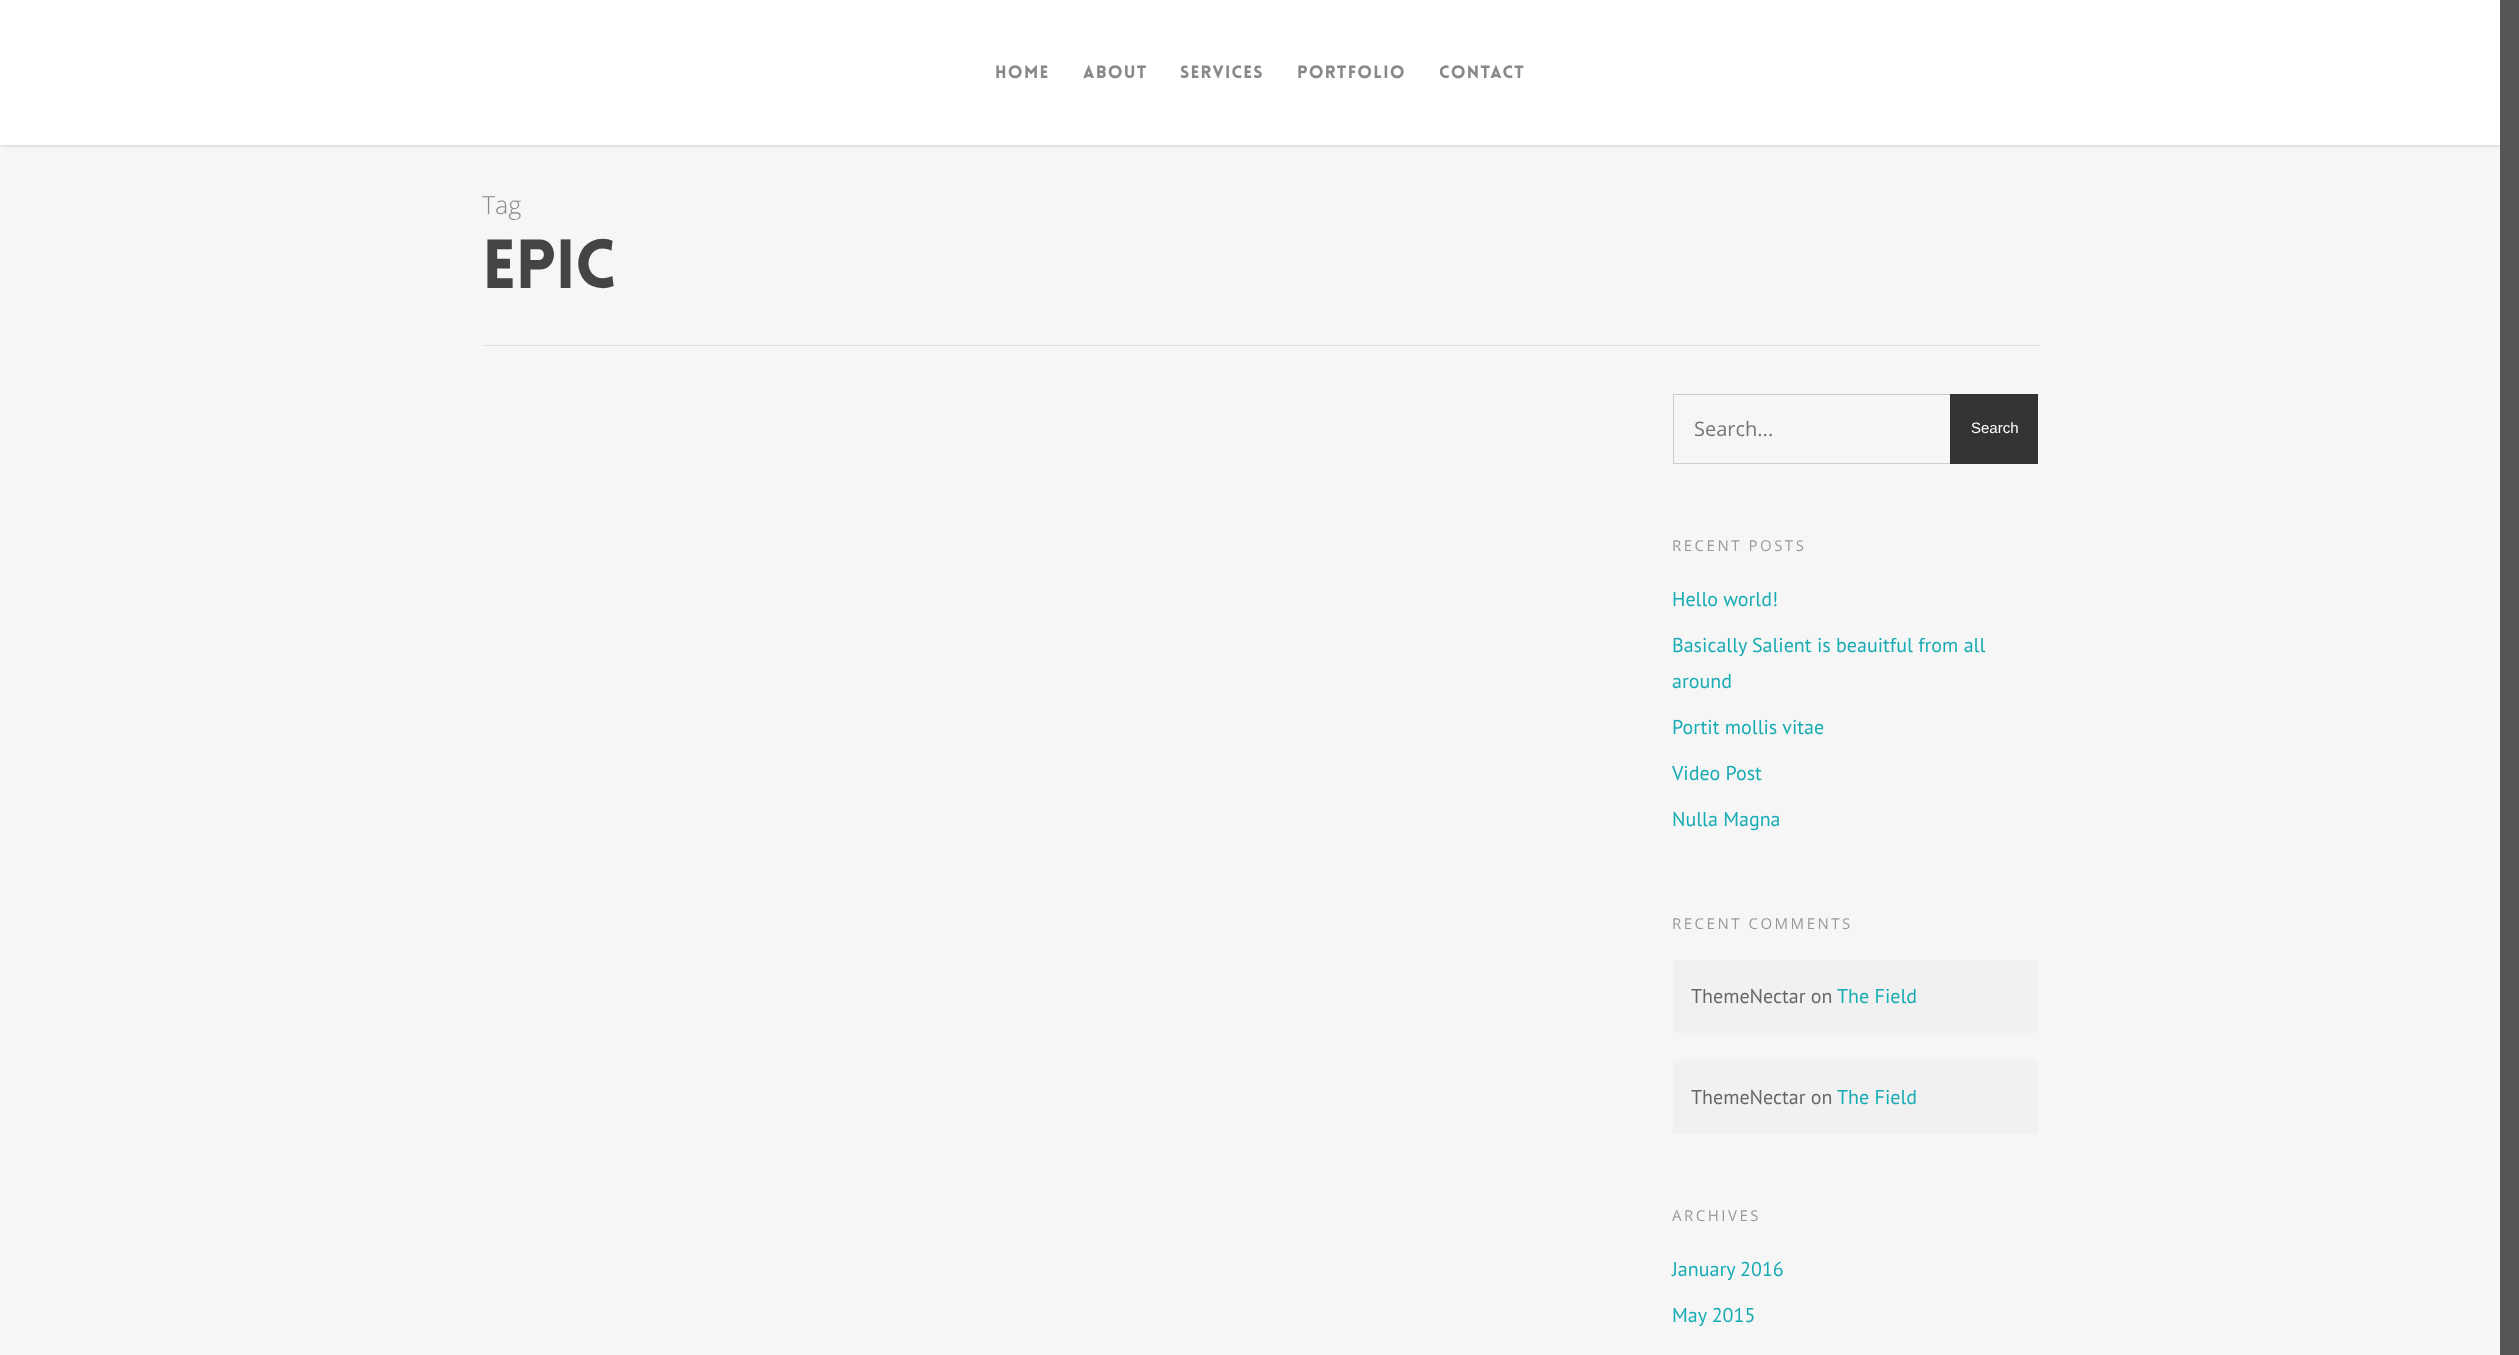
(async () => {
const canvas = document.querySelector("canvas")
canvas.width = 2519
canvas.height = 1355
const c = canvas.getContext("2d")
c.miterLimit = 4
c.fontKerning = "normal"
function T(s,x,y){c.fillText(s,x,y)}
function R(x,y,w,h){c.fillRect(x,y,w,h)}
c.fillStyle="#f6f6f6"
R(0,0,2519,1355)
c.fillStyle="#00000038"
c.filter="blur(2px)"
c.beginPath()
c.rect(0,0,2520,145)
c.fill()
c.filter="none"
c.fillStyle="#fff"
R(0,0,2500,145)
c.letterSpacing="1.25px"
c.font="900 17.5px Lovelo"
c.fillStyle="#888"
T("Home",995,78)
T("About",1083,78)
T("Services",1180,78)
T("Portfolio",1297,78)
T("Contact",1439,78)
c.fillStyle="#555"
R(2500,0,19,1355)
c.fillStyle="#ddd"
R(483,345,1556,1)
c.letterSpacing="0px"
c.font="300 25px Open Sans"
c.fillStyle="#888"
T("Tag",482,214)
c.letterSpacing="-1px"
c.font="900 68px Lovelo"
c.fillStyle="#444"
T("Epic",482,288)
c.strokeStyle="#ccc"
c.strokeRect(1673.5,394.5,364,69)
c.letterSpacing="0px"
c.font="20px Open Sans"
c.fillStyle="#757575"
T("Search...",1694,436)
c.fillStyle="#333"
R(1950,394,88,70)
c.font="15px Liberation Sans"
c.fillStyle="#fff"
T("Search",1971,433)
c.letterSpacing="2.5px"
c.font="15px Open Sans"
c.fillStyle="#999"
T("RECENT POSTS",1672,551)
c.letterSpacing="0px"
c.font="20px PT Sans"
c.fillStyle="#17abb4"
T("Hello world!",1672,606)
T("Basically Salient is beauitful from all",1672,652)
T("around",1672,688)
T("Portit mollis vitae",1672,734)
T("Video Post",1672,780)
T("Nulla Magna",1672,826)
c.letterSpacing="2.5px"
c.font="15px Open Sans"
c.fillStyle="#999"
T("RECENT COMMENTS",1672,929)
c.fillStyle="#f1f1f1"
R(1673,960,365,73)
c.letterSpacing="0px"
c.font="20px PT Sans"
c.fillStyle="#676767"
T("ThemeNectar on",1691,1003)
c.fillStyle="#17abb4"
T("The Field",1837,1003)
c.fillStyle="#f1f1f1"
R(1673,1060,365,74)
c.fillStyle="#676767"
T("ThemeNectar on",1691,1104)
c.fillStyle="#17abb4"
T("The Field",1837,1104)
c.letterSpacing="2.5px"
c.font="15px Open Sans"
c.fillStyle="#999"
T("ARCHIVES",1672,1221)
c.letterSpacing="0px"
c.font="20px PT Sans"
c.fillStyle="#17abb4"
T("January 2016",1672,1276)
T("May 2015",1672,1322)
})()
